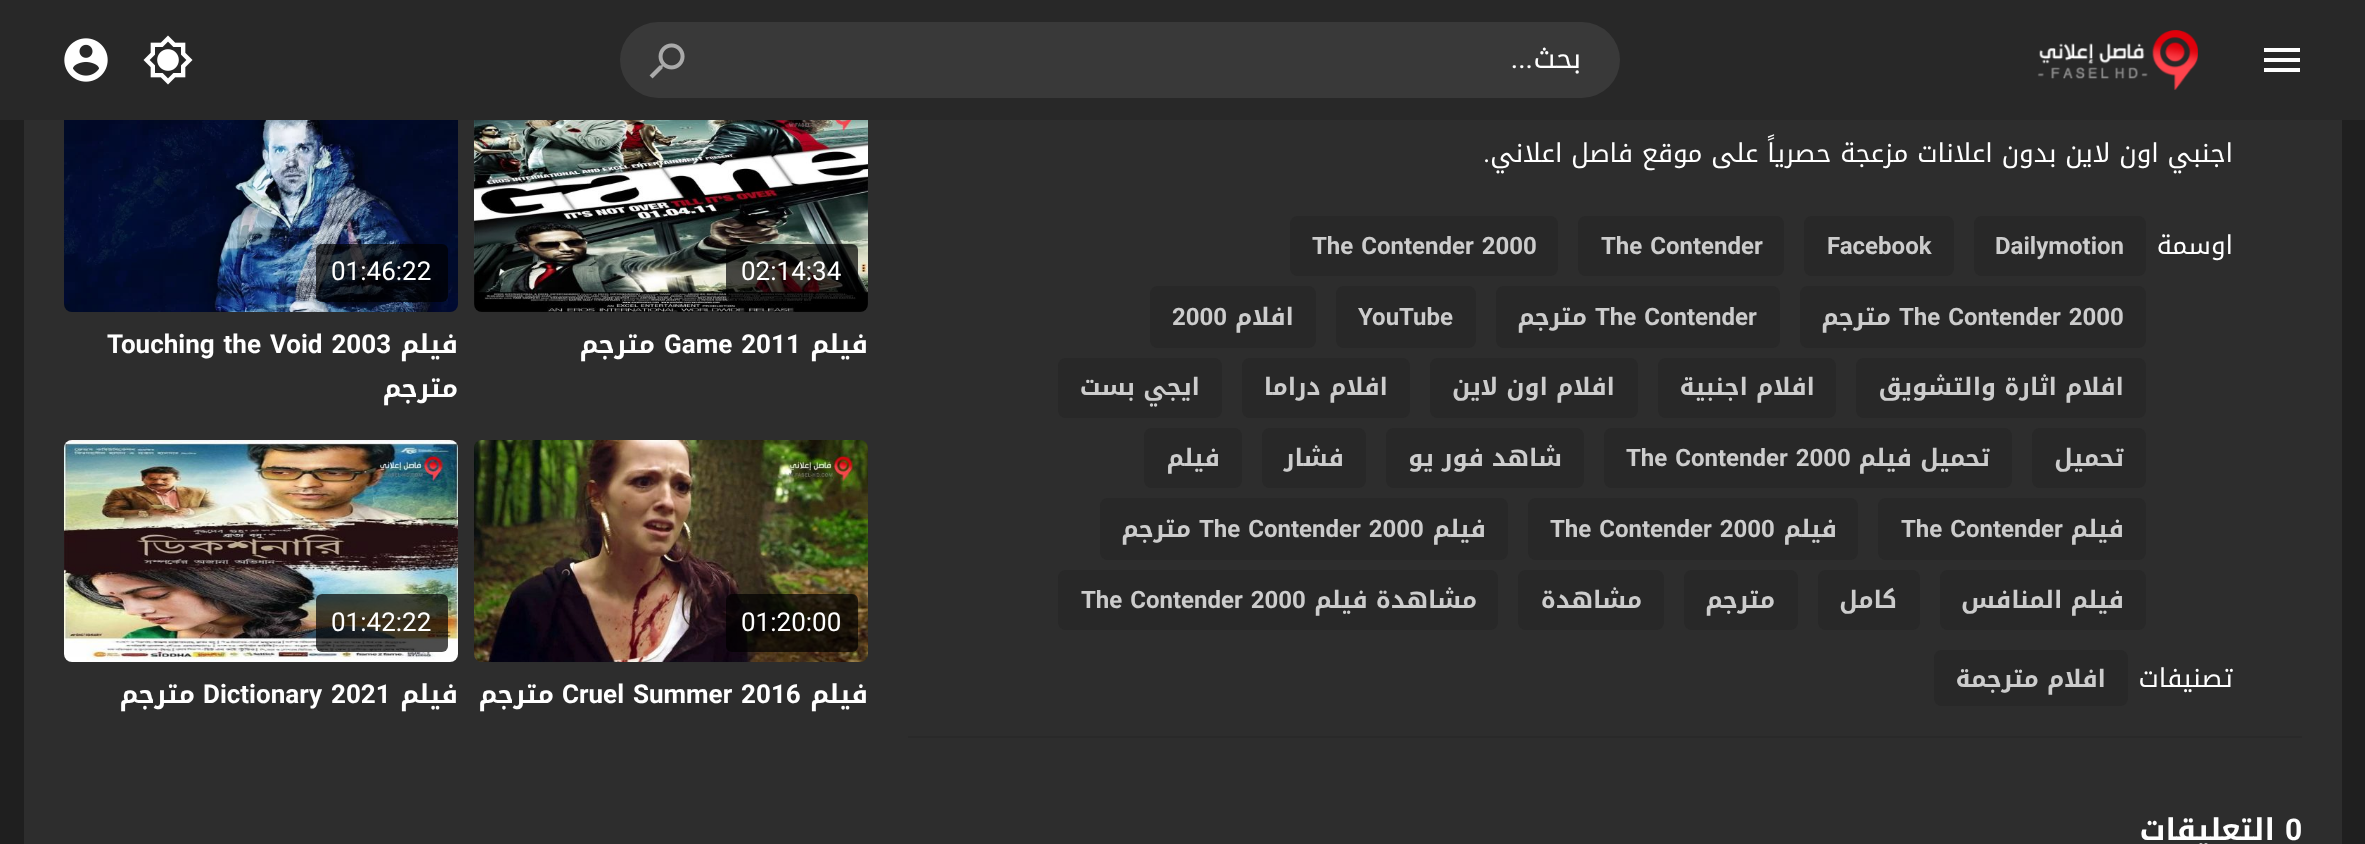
(async () => {
const canvas = document.querySelector("canvas")
canvas.width = 2365
canvas.height = 844
const c = canvas.getContext("2d")
c.miterLimit = 4
c.fontKerning = "normal"
function T(s,x,y){c.fillText(s,x,y)}
function R(x,y,w,h){c.fillRect(x,y,w,h)}
function Q(x,y,w,h,r){c.beginPath();c.roundRect(x,y,w,h,r);c.fill()}
async function I(src,x,y,w,h){const img=new Image();img.src=src;await img.decode();c.drawImage(img,x,y,w,h)}
c.fillStyle="#1f1f1f"
R(0,0,2365,844)
c.fillStyle="#282828"
R(0,0,2365,120)
await I("1.png",2264,48,36,24)
await I("2.png",2037,30,161,60)
c.fillStyle="#393939"
c.beginPath()
c.roundRect(720,22,900,76,[0,38,38,0])
c.fill()
c.direction="rtl"
c.font="28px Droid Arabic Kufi"
c.fillStyle="#fff"
T("بحث",1581,68)
c.font="28px Roboto"
T("...",1533,68)
c.fillStyle="#393939"
c.beginPath()
c.roundRect(620,22,100,76,[38,0,0,38])
c.fill()
await I("3.png",649,43,36,36)
await I("4.png",143,35,50,50)
await I("5.png",64,38,44,44)
c.fillStyle="#2d2d2d"
R(24,120,2318,724)
c.fillStyle="#292929"
R(908,736,1394,2)
c.font="26px Droid Arabic Kufi"
c.fillStyle="#fff"
T("اجنبي اون لاين بدون اعلانات مزعجة حصرياً على موقع فاصل اعلاني",2233,162)
c.font="26px Roboto"
T(".",1490,162)
c.font="26px Droid Arabic Kufi"
T("اوسمة",2233,254)
c.fillStyle="#282828"
Q(1974,216,172,60,8)
c.direction="ltr"
c.font="bold 24px Roboto"
c.fillStyle="#ccc"
T("Dailymotion",1995,254)
c.fillStyle="#282828"
Q(1804,216,150,60,8)
c.fillStyle="#ccc"
T("Facebook",1827,254)
c.fillStyle="#282828"
Q(1578,216,206,60,8)
c.wordSpacing="2px"
c.fillStyle="#ccc"
T("The Contender",1601,254)
c.fillStyle="#282828"
Q(1290,216,268,60,8)
c.fillStyle="#ccc"
T("The Contender 2000",1312,254)
c.fillStyle="#282828"
Q(1800,286,346,62,8)
c.fillStyle="#ccc"
T("The Contender 2000",1899,325)
c.wordSpacing="0px"
c.direction="rtl"
c.font="bold 24px Droid Arabic Kufi"
T("مترجم",1891,325)
c.fillStyle="#282828"
Q(1496,286,284,62,8)
c.wordSpacing="2px"
c.direction="ltr"
c.font="bold 24px Roboto"
c.fillStyle="#ccc"
T("The Contender",1595,325)
c.wordSpacing="0px"
c.direction="rtl"
c.font="bold 24px Droid Arabic Kufi"
T("مترجم",1587,325)
c.fillStyle="#282828"
Q(1336,286,140,62,8)
c.direction="ltr"
c.font="bold 24px Roboto"
c.fillStyle="#ccc"
T("YouTube",1358,325)
c.fillStyle="#282828"
Q(1150,286,166,62,8)
c.direction="rtl"
c.font="bold 24px Droid Arabic Kufi"
c.fillStyle="#ccc"
T("افلام",1294,325)
c.direction="ltr"
c.font="bold 24px Roboto"
T("2000",1172,325)
c.fillStyle="#282828"
Q(1856,358,290,60,8)
c.direction="rtl"
c.font="bold 24px Droid Arabic Kufi"
c.fillStyle="#ccc"
T("افلام اثارة والتشويق",2124,395)
c.fillStyle="#282828"
Q(1658,358,178,60,8)
c.fillStyle="#ccc"
T("افلام اجنبية",1815,395)
c.fillStyle="#282828"
Q(1430,358,208,60,8)
c.fillStyle="#ccc"
T("افلام اون لاين",1615,395)
c.fillStyle="#282828"
Q(1242,358,168,60,8)
c.fillStyle="#ccc"
T("افلام دراما",1388,395)
c.fillStyle="#282828"
Q(1058,358,164,60,8)
c.fillStyle="#ccc"
T("ايجي بست",1200,395)
c.fillStyle="#282828"
Q(2032,428,114,60,8)
c.fillStyle="#ccc"
T("تحميل",2124,466)
c.fillStyle="#282828"
Q(1604,428,408,60,8)
c.fillStyle="#ccc"
T("تحميل فيلم",1990,466)
c.wordSpacing="2px"
c.direction="ltr"
c.font="bold 24px Roboto"
T("The Contender 2000",1626,466)
c.fillStyle="#282828"
Q(1386,428,198,60,8)
c.wordSpacing="0px"
c.direction="rtl"
c.font="bold 24px Droid Arabic Kufi"
c.fillStyle="#ccc"
T("شاهد فور يو",1562,466)
c.fillStyle="#282828"
Q(1262,428,104,60,8)
c.fillStyle="#ccc"
T("فشار",1344,466)
c.fillStyle="#282828"
Q(1144,428,98,60,8)
c.fillStyle="#ccc"
T("فيلم",1220,466)
c.fillStyle="#282828"
Q(1878,498,268,62,8)
c.fillStyle="#ccc"
T("فيلم",2124,537)
c.wordSpacing="2px"
c.direction="ltr"
c.font="bold 24px Roboto"
T("The Contender",1901,537)
c.fillStyle="#282828"
Q(1528,498,330,62,8)
c.wordSpacing="0px"
c.direction="rtl"
c.font="bold 24px Droid Arabic Kufi"
c.fillStyle="#ccc"
T("فيلم",1837,537)
c.wordSpacing="2px"
c.direction="ltr"
c.font="bold 24px Roboto"
T("The Contender 2000",1550,537)
c.fillStyle="#282828"
Q(1100,498,408,62,8)
c.wordSpacing="0px"
c.direction="rtl"
c.font="bold 24px Droid Arabic Kufi"
c.fillStyle="#ccc"
T("فيلم",1486,537)
c.wordSpacing="2px"
c.direction="ltr"
c.font="bold 24px Roboto"
T("The Contender 2000",1199,537)
c.wordSpacing="0px"
c.direction="rtl"
c.font="bold 24px Droid Arabic Kufi"
T("مترجم",1191,537)
c.fillStyle="#282828"
Q(1940,570,206,60,8)
c.fillStyle="#ccc"
T("فيلم المنافس",2124,608)
c.fillStyle="#282828"
Q(1818,570,102,60,8)
c.fillStyle="#ccc"
T("كامل",1897,608)
c.fillStyle="#282828"
Q(1684,570,114,60,8)
c.fillStyle="#ccc"
T("مترجم",1775,608)
c.fillStyle="#282828"
Q(1518,570,146,60,8)
c.fillStyle="#ccc"
T("مشاهدة",1642,608)
c.fillStyle="#282828"
Q(1058,570,440,60,8)
c.fillStyle="#ccc"
T("مشاهدة فيلم",1477,608)
c.wordSpacing="2px"
c.direction="ltr"
c.font="bold 24px Roboto"
T("The Contender 2000",1081,608)
c.wordSpacing="0px"
c.direction="rtl"
c.font="26px Droid Arabic Kufi"
c.fillStyle="#fff"
T("تصنيفات",2233,687)
c.fillStyle="#282828"
Q(1934,650,194,56,8)
c.font="bold 24px Droid Arabic Kufi"
c.fillStyle="#ccc"
T("افلام مترجمة",2106,687)
c.direction="ltr"
c.font="bold 30px Roboto"
c.fillStyle="#fff"
T("0",2285,840)
c.direction="rtl"
c.font="bold 30px Droid Arabic Kufi"
T("التعليقات",2275,840)
await I("6.png",474,120,394,192)
c.fillStyle="#000000b3"
Q(726,244,132,58,6)
c.direction="ltr"
c.font="26px Roboto"
c.fillStyle="#fff"
T("02:14:34",741,280)
c.direction="rtl"
c.font="bold 26px Droid Arabic Kufi"
T("فيلم",868,353)
c.wordSpacing="2.5px"
c.direction="ltr"
c.font="bold 26px Roboto"
T("Game 2011",664,353)
c.wordSpacing="0px"
c.direction="rtl"
c.font="bold 26px Droid Arabic Kufi"
T("مترجم",655,353)
await I("7.png",64,120,394,192)
c.fillStyle="#000000b3"
Q(316,244,132,58,6)
c.direction="ltr"
c.font="26px Roboto"
c.fillStyle="#fff"
T("01:46:22",331,280)
c.direction="rtl"
c.font="bold 26px Droid Arabic Kufi"
T("فيلم",458,353)
c.wordSpacing="2.5px"
c.direction="ltr"
c.font="bold 26px Roboto"
T("Touching the Void 2003",107,353)
c.wordSpacing="0px"
c.direction="rtl"
c.font="bold 26px Droid Arabic Kufi"
T("مترجم",458,397)
await I("8.png",474,440,394,222)
c.fillStyle="#000000b3"
Q(726,594,132,58,6)
c.direction="ltr"
c.font="26px Roboto"
c.fillStyle="#fff"
T("01:20:00",741,631)
c.direction="rtl"
c.font="bold 26px Droid Arabic Kufi"
T("فيلم",868,703)
c.wordSpacing="2.5px"
c.direction="ltr"
c.font="bold 26px Roboto"
T("Cruel Summer 2016",562,703)
c.wordSpacing="0px"
c.direction="rtl"
c.font="bold 26px Droid Arabic Kufi"
T("مترجم",554,703)
await I("9.png",64,440,394,222)
c.fillStyle="#000000b3"
Q(316,594,132,58,6)
c.direction="ltr"
c.font="26px Roboto"
c.fillStyle="#fff"
T("01:42:22",331,631)
c.direction="rtl"
c.font="bold 26px Droid Arabic Kufi"
T("فيلم",458,703)
c.wordSpacing="2.5px"
c.direction="ltr"
c.font="bold 26px Roboto"
T("Dictionary 2021",203,703)
c.wordSpacing="0px"
c.direction="rtl"
c.font="bold 26px Droid Arabic Kufi"
T("مترجم",195,703)
})()
